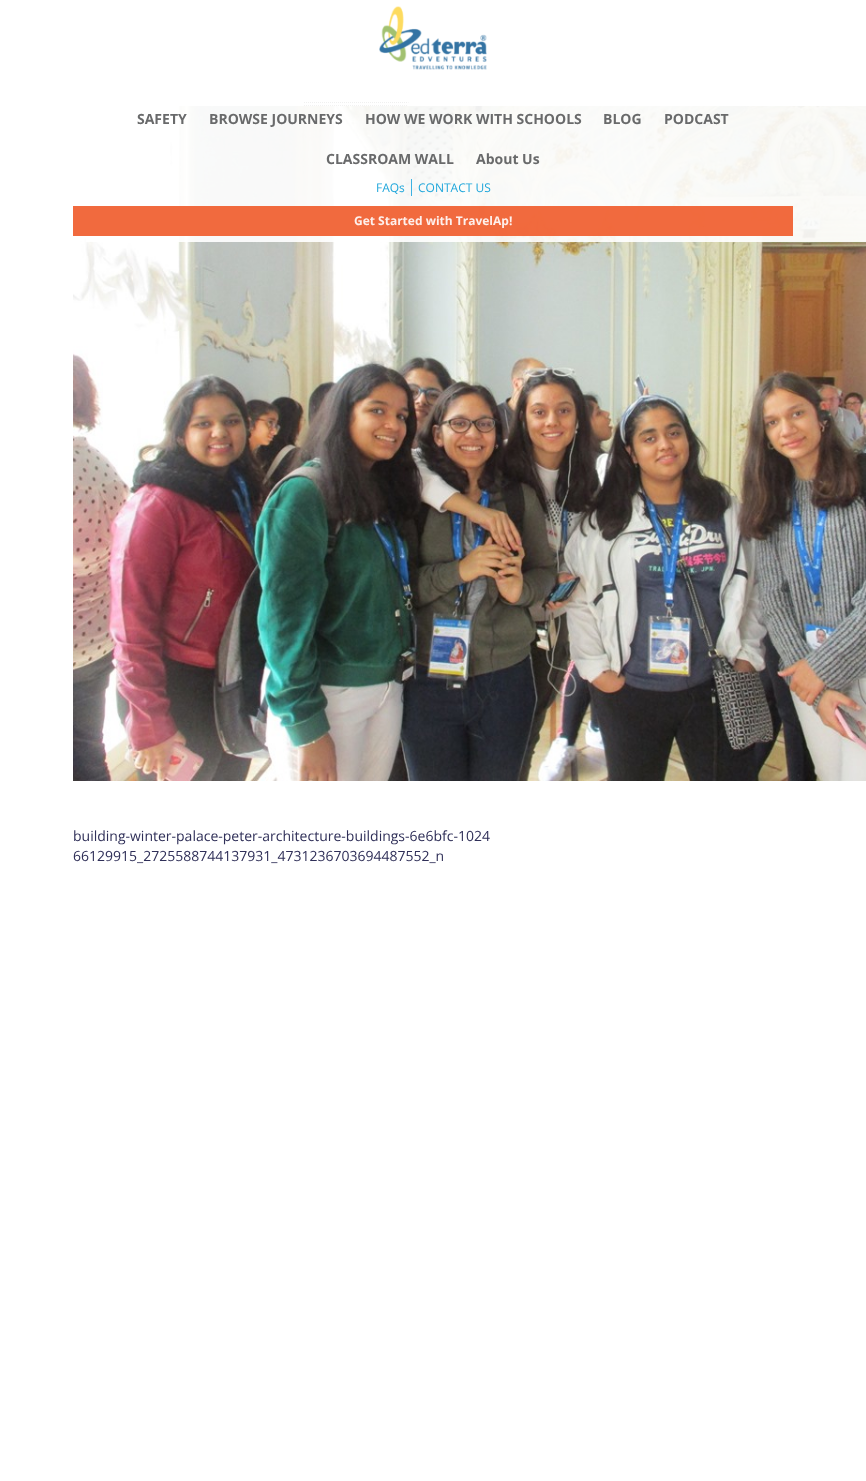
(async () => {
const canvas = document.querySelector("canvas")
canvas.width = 866
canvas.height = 1481
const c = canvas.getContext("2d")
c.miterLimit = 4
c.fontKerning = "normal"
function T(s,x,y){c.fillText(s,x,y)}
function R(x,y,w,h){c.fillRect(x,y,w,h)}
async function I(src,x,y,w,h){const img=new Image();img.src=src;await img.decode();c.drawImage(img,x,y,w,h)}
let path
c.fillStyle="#fff"
R(0,0,866,1481)
path = new Path2D("M304 102.5h104.5")
c.strokeStyle="#666"
c.setLineDash([1,1])
c.stroke(path)
path = new Path2D("M304 105.5h104")
c.strokeStyle="#777"
c.stroke(path)
await I("2.png",73,106,793,675)
c.fillStyle="#ffffffe6"
R(86,102,780,140)
await I("1.png",379,6,108,64)
c.font="bold 14px Open Sans"
c.fillStyle="#696a6b"
T("SAFETY",137,124)
T("BROWSE JOURNEYS",209,124)
T("HOW WE WORK WITH SCHOOLS",365,124)
T("BLOG",603,124)
T("PODCAST",664,124)
T("CLASSROAM WALL",326,164)
T("About Us",476,164)
c.fillStyle="#3cb2e3"
R(411,179,1,17)
c.font="12px Open Sans"
c.fillStyle="#1ea6db"
T("FAQs",376,192)
T("CONTACT US",418,192)
c.fillStyle="#f05a29e6"
R(73,206,720,30)
c.font="bold 12px Open Sans"
c.fillStyle="#fef0ec"
T("Get Started with TravelAp!",354,225)
c.font="14px Open Sans"
c.fillStyle="#2f2f58"
T("building-winter-palace-peter-architecture-buildings-6e6bfc-1024",73,841)
T("66129915_2725588744137931_4731236703694487552_n",73,861)
})()
